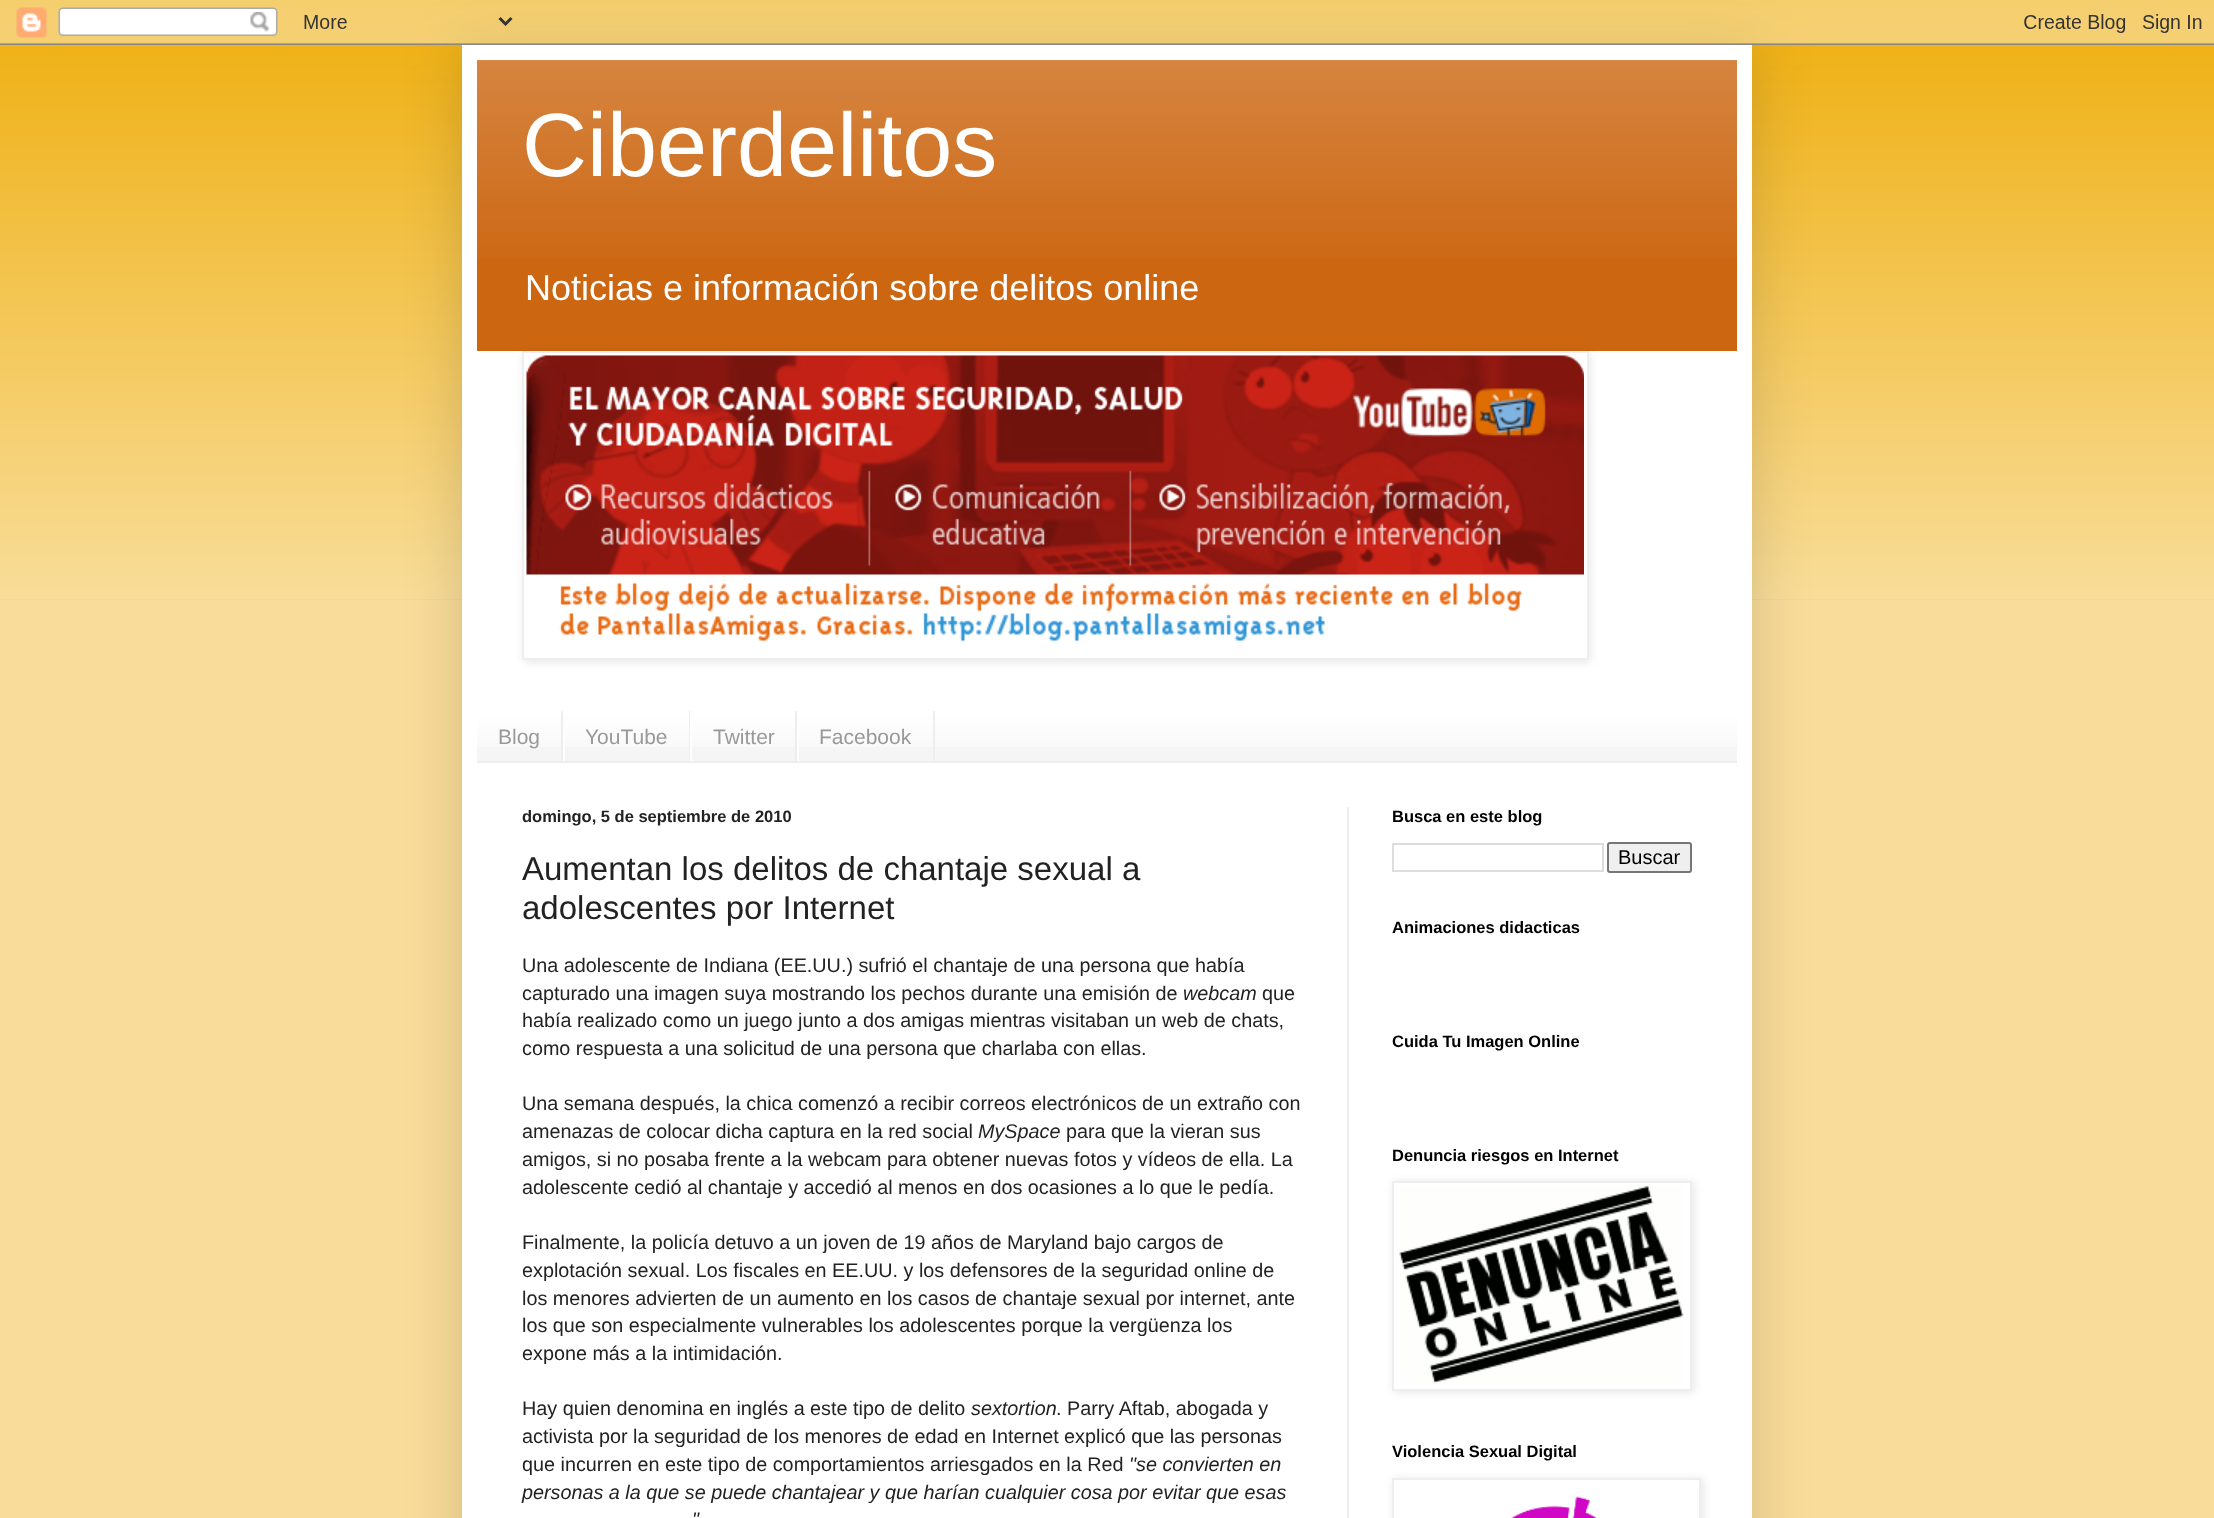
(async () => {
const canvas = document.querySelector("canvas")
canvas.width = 2214
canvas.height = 1518
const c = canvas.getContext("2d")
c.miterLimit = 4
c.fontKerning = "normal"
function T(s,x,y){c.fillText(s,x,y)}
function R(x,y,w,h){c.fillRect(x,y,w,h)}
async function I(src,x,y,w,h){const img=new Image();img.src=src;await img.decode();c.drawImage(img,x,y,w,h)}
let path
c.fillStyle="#f9dc99"
R(0,0,2214,1518)
c.fillStyle="#ea0"
R(0,0,2214,600)
await I("1.png",0,0,2214,600)
c.fillStyle="#00000026"
c.filter="blur(30px)"
c.beginPath()
c.rect(462,45,1290,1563)
c.fill()
c.filter="none"
await I("2.png",0,0,2214,45)
c.fillStyle="#fff"
R(462,45,1290,1473)
c.fillStyle="#c61"
R(477,60,1260,291)
await I("3.png",477,60,1260,199)
c.font="90px Liberation Sans"
c.fillStyle="#fff"
T("Ciberdelitos",522,176)
c.font="36px Liberation Sans"
T("Noticias e información sobre delitos online",525,300)
c.fillStyle="#0000001a"
c.filter="blur(4px)"
c.beginPath()
c.rect(524,353,1066,309)
c.fill()
c.filter="none"
c.fillStyle="#fff"
c.beginPath()
c.rect(523,352,1065,307)
c.fill()
c.strokeStyle="#eee"
c.lineWidth=2
c.stroke()
await I("4.png",526,355,1058,287)
c.fillStyle="#f5f5f5"
R(477,711,1260,50)
await I("5.png",477,711,1260,36)
c.fillStyle="#eee"
R(477,761,1260,2)
R(561,711,2,50)
c.font="21px Liberation Sans"
c.fillStyle="#999"
T("Blog",498,744)
c.fillStyle="#eee"
R(689,711,1,50)
c.fillStyle="#fff"
R(563,727,2,34)
c.fillStyle="#999"
T("YouTube",585,744)
c.fillStyle="#eee"
R(795,711,2,50)
c.fillStyle="#fff"
R(690,727,2,34)
c.fillStyle="#999"
T("Twitter",713,744)
c.fillStyle="#eee"
R(933,711,2,50)
c.fillStyle="#fff"
R(797,727,2,34)
c.fillStyle="#999"
T("Facebook",819,744)
c.fillStyle="#eee"
R(1347,807,2,711)
c.font="bold 16.5px Liberation Sans"
c.fillStyle="#222"
T("domingo, 5 de septiembre de 2010",522,822)
c.font="33px Liberation Sans"
T("Aumentan los delitos de chantaje sexual a",522,880)
T("adolescentes por Internet",522,919)
c.font="19.8px Liberation Sans"
T("Una adolescente de Indiana (EE.UU.) sufrió el chantaje de una persona que había",522,972)
T("capturado una imagen suya mostrando los pechos durante una emisión de",522,1000)
c.font="italic 19.8px Liberation Sans"
T("webcam",1183,1000)
c.font="19.8px Liberation Sans"
T("que",1262,1000)
T("había realizado como un juego junto a dos amigas mientras visitaban un web de chats,",522,1027)
T("como respuesta a una solicitud de una persona que charlaba con ellas.",522,1055)
T("Una semana después, la chica comenzó a recibir correos electrónicos de un extraño con",522,1110)
T("amenazas de colocar dicha captura en la red social",522,1138)
c.font="italic 19.8px Liberation Sans"
T("MySpace",978,1138)
c.font="19.8px Liberation Sans"
T("para que la vieran sus",1066,1138)
T("amigos, si no posaba frente a la webcam para obtener nuevas fotos y vídeos de ella. La",522,1166)
T("adolescente cedió al chantaje y accedió al menos en dos ocasiones a lo que le pedía.",522,1194)
T("Finalmente, la policía detuvo a un joven de 19 años de Maryland bajo cargos de",522,1249)
T("explotación sexual. Los fiscales en EE.UU. y los defensores de la seguridad online de",522,1277)
T("los menores advierten de un aumento en los casos de chantaje sexual por internet, ante",522,1305)
T("los que son especialmente vulnerables los adolescentes porque la vergüenza los",522,1332)
T("expone más a la intimidación.",522,1360)
T("Hay quien denomina en inglés a este tipo de delito",522,1415)
c.font="italic 19.8px Liberation Sans"
T("sextortion",971,1415)
c.font="19.8px Liberation Sans"
T(". Parry Aftab, abogada y",1056,1415)
T("activista por la seguridad de los menores de edad en Internet explicó que las personas",522,1443)
T("que incurren en este tipo de comportamientos arriesgados en la Red",522,1471)
c.font="italic 19.8px Liberation Sans"
T("\"se convierten en",1129,1471)
T("personas a la que se puede chantajear y que harían cualquier cosa por evitar que esas",522,1499)
T("\"",692,1526)
c.font="bold 16.5px Liberation Sans"
c.fillStyle="#000"
T("Busca en este blog",1392,822)
c.strokeStyle="#ddd"
c.strokeRect(1393,844,210,27)
c.fillStyle="#efefef"
c.beginPath()
c.roundRect(1608,843,83,29,2)
c.fill()
c.strokeStyle="#767676"
c.stroke()
c.font="20px Liberation Sans"
c.fillStyle="#000"
T("Buscar",1618,864)
c.font="bold 16.5px Liberation Sans"
T("Animaciones didacticas",1392,933)
T("Cuida Tu Imagen Online",1392,1047)
T("Denuncia riesgos en Internet",1392,1161)
c.fillStyle="#0000001a"
c.filter="blur(4px)"
c.beginPath()
c.rect(1394,1182,300,210)
c.fill()
c.filter="none"
c.fillStyle="#fff"
c.beginPath()
c.rect(1393,1182,298,208)
c.fill()
c.strokeStyle="#eee"
c.stroke()
await I("6.png",1399,1186,285,198)
c.fillStyle="#000"
T("Violencia Sexual Digital",1392,1457)
c.save()
path = new Path2D("M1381 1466h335v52h-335zm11 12h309v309h-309z")
c.clip(path,"evenodd")
c.fillStyle="#0000001a"
c.filter="blur(4px)"
c.beginPath()
c.rect(1394,1479,309,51)
c.fill()
c.filter="none"
c.restore()
c.strokeRect(1393,1479,307,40)
await I("7.png",1510,1496,88,22)
})()
